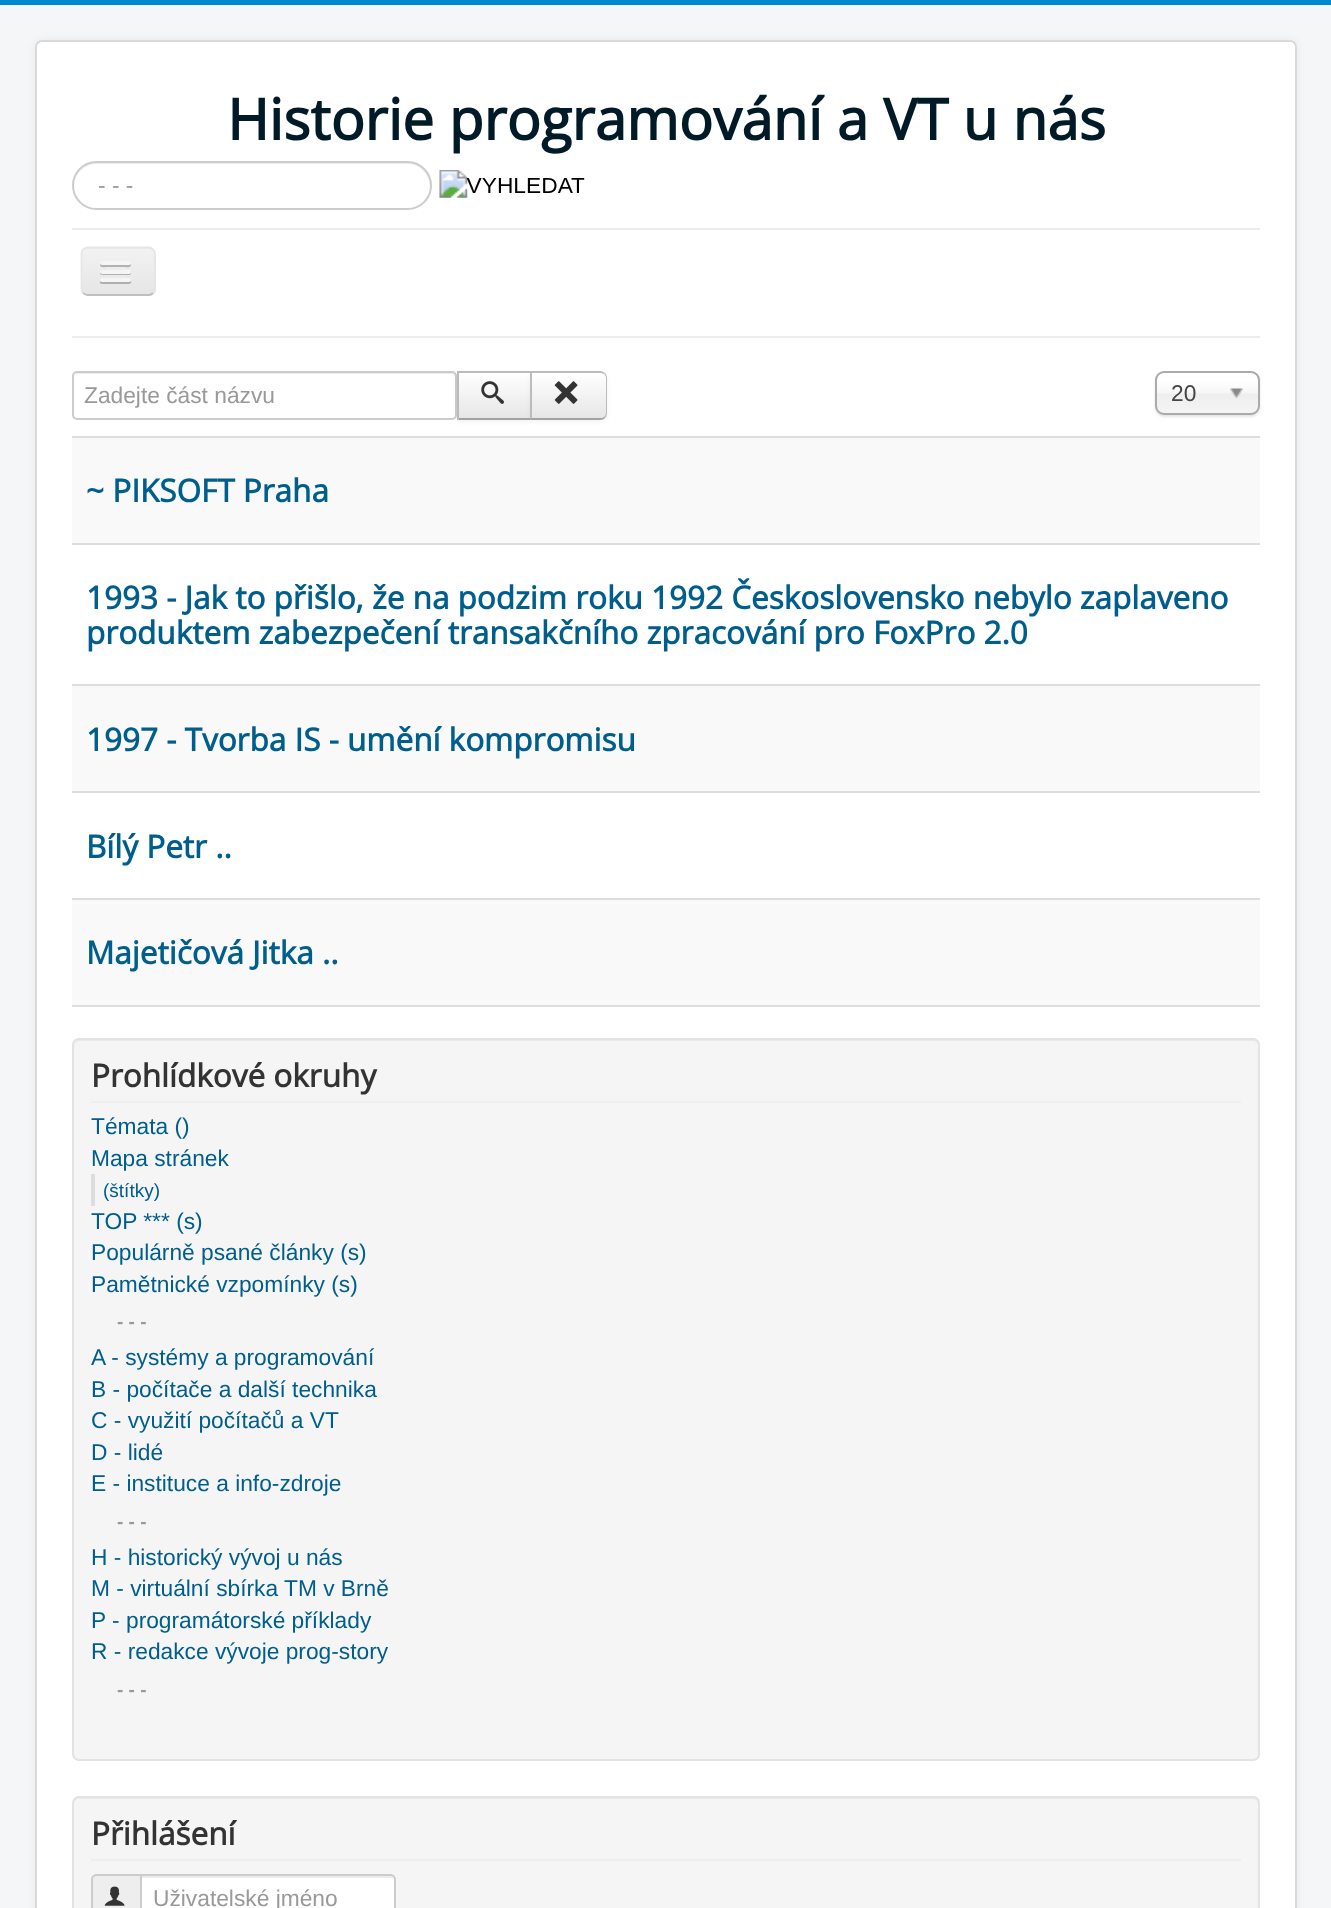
(async () => {
const canvas = document.querySelector("canvas")
canvas.width = 1331
canvas.height = 1908
const c = canvas.getContext("2d")
c.miterLimit = 4
c.fontKerning = "normal"
function T(s,x,y){c.fillText(s,x,y)}
function R(x,y,w,h){c.fillRect(x,y,w,h)}
function Q(x,y,w,h,r){c.beginPath();c.roundRect(x,y,w,h,r);c.fill()}
async function I(src,x,y,w,h){const img=new Image();img.src=src;await img.decode();c.drawImage(img,x,y,w,h)}
let gradient, path
c.fillStyle="#f4f6f7"
R(0,0,1331,1908)
c.fillStyle="#08c"
R(0,0,1331,5)
c.fillStyle="#0000000d"
c.filter="blur(5px)"
c.beginPath()
c.roundRect(35,40,1262,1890,7)
c.fill()
c.filter="none"
c.fillStyle="#fff"
Q(35,40,1262,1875,7)
c.beginPath()
c.roundRect(36,41,1260,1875,6)
c.strokeStyle="#00000026"
c.lineWidth=2
c.stroke()
c.font="bold 56.75px Open Sans"
c.fillStyle="#001a27"
T("Historie programování a VT u nás",227,140)
c.fillStyle="#ececec"
path = new Path2D("M96 164h312c12 0 22 11 22 23c0 4-1 7-2 10c2-3 3-7 3-11c0-13-10-23-23-23h-312c-12 0-22 10-22 23c0-11 10-22 22-22z")
c.fill(path)
c.beginPath()
c.roundRect(73,162,358,47,23.5)
c.strokeStyle="#ccc"
c.stroke()
c.font="22.75px Liberation Sans"
c.fillStyle="#999"
T("- - -",98,193)
await I("1.png",439,169,146,29)
c.fillStyle="#ececec"
R(72,228,1188,2)
R(72,336,1188,2)
c.fillStyle="#ededed"
Q(81,247,75,49,7)
c.save()
c.beginPath()
c.roundRect(81,247,75,49,7)
c.clip()
gradient = c.createLinearGradient(118,249,118,294)
gradient.addColorStop(0,"#f2f2f2")
gradient.addColorStop(1,"#e6e6e6")
c.fillStyle = gradient
R(81,249,75,45)
c.restore()
path = new Path2D("M153 293c-1 1-2.5 2-4 2h-61.5c-1.5 0-3-1-4.5-2")
c.strokeStyle="#bfbfbf"
c.lineWidth=1.8
c.stroke(path)
path = new Path2D("M83 293c-1-1-1.5-2.5-1.5-4v-35c0-2 .5-3.5 1.5-4.5c1.5-1 3-2 4.5-2h61.5c1.5 0 3 1 4 2c1 1 2 2.5 2 4.5v35c0 1.5-1 3-2 4")
c.strokeStyle="#e6e6e6"
c.stroke(path)
c.fillStyle="#b2b2b2"
path = new Path2D("M100.5 264l-.5 1.5c.5 2.5 5.5 1.5 6.5 1.5h18c1 0 6 1 6.5-1.5l-.5-1.5c-1 .5-29 .5-30 0z")
c.fill(path)
c.fillStyle="#f5f5f5"
Q(100,261,31,4,2)
c.fillStyle="#b0b0b0"
path = new Path2D("M100 272.5c-1 3.5 5.5 2.5 6.5 2.5h18c1 0 7.5 1 6.5-2.5l-1.5 .5h-28z")
c.fill(path)
c.fillStyle="#f5f5f5"
Q(100,270,31,4,2)
c.fillStyle="#afafaf"
path = new Path2D("M100 281c-1.5 4 5.5 3 6.5 3h18c1 0 8 1 6.5-3l-1.5 .5h-28z")
c.fill(path)
c.fillStyle="#f5f5f5"
Q(100,278,31,4,2)
c.fillStyle="#ececec"
path = new Path2D("M77 374h375c1 0 3 2 3 4c0-3-1-5-4-5h-373c-3 0-4 2-4 5c0-2 1-4 3-4z")
c.fill(path)
c.beginPath()
c.roundRect(73,372,383,47,4)
c.strokeStyle="#ccc"
c.lineWidth=2
c.stroke()
c.fillStyle="#999"
T("Zadejte část názvu",84,403)
c.fillStyle="#0000000d"
c.filter="blur(2px)"
c.beginPath()
c.rect(457,373,75,49)
c.fill()
c.filter="none"
gradient = c.createLinearGradient(494,373,494,418)
gradient.addColorStop(0,"#fff")
gradient.addColorStop(1,"#e6e6e6")
c.fillStyle = gradient
R(459,373,71,45)
c.fillStyle="#bbb"
R(457,371,75,2)
c.fillStyle="#a2a2a2"
R(457,418,75,2)
c.fillStyle="#bbb"
R(457,371,2,49)
await I("2.png",481,381,23,23)
c.fillStyle="#0000000d"
c.filter="blur(2px)"
c.beginPath()
c.roundRect(530,373,77,49,7)
c.fill()
c.filter="none"
c.save()
c.beginPath()
c.roundRect(530,371,77,49,[0,7,7,0])
c.clip()
gradient = c.createLinearGradient(569,373,569,418)
gradient.addColorStop(0,"#fff")
gradient.addColorStop(1,"#e6e6e6")
c.fillStyle = gradient
R(532,373,75,45)
c.restore()
c.fillStyle="#bbb"
path = new Path2D("M530 371l2 2h68c1 0 3 0 4 1l1-1c-1-1-3-2-5-2z")
c.fill(path)
path = new Path2D("M605 373c1 1 2 3 2 5v35c0 2-1 4-2 5l-1-1c1-1 2-2 2-4v-35c0-2-1-3-2-4z")
c.fill(path)
c.fillStyle="#a2a2a2"
path = new Path2D("M530 420h70c2 0 4-1 5-2l-1-1c-1 1-3 1-4 1h-68z")
c.fill(path)
c.fillStyle="#bbb"
path = new Path2D("M532 373l-2-2v49l2-2z")
c.fill(path)
await I("3.png",554,381,24,23)
c.fillStyle="#0000001a"
c.filter="blur(1px)"
c.beginPath()
c.roundRect(1155,373,105,44,9)
c.fill()
c.filter="none"
gradient = c.createLinearGradient(1208,373,1208,413)
gradient.addColorStop(.2,"#fff")
gradient.addColorStop(.5,"#f6f6f6")
gradient.addColorStop(.52,"#eee")
gradient.addColorStop(1,"#f4f4f4")
c.fillStyle = gradient
Q(1157,373,101,40,7)
c.beginPath()
c.roundRect(1156,372,103,42,8)
c.strokeStyle="#aaa"
c.stroke()
c.fillStyle="#444"
T("20",1171,401)
await I("4.png",1230,388,13,11)
c.fillStyle="#ddd"
R(72,436,1188,2)
c.fillStyle="#f9f9f9"
R(72,438,1188,105)
c.fillStyle="#ddd"
R(72,543,1188,2)
c.font="bold 31.5px Open Sans"
c.fillStyle="#005e8d"
T("~ PIKSOFT Praha",86,502)
c.fillStyle="#ddd"
R(72,684,1188,2)
c.fillStyle="#005e8d"
T("1993 - Jak to přišlo, že na podzim roku 1992 Československo nebylo zaplaveno",86,609)
T("produktem zabezpečení transakčního zpracování pro FoxPro 2.0",86,644)
c.fillStyle="#f9f9f9"
R(72,686,1188,105)
c.fillStyle="#ddd"
R(72,791,1188,2)
c.fillStyle="#005e8d"
T("1997 - Tvorba IS - umění kompromisu",86,751)
c.fillStyle="#ddd"
R(72,898,1188,2)
c.fillStyle="#005e8d"
T("Bílý Petr ..",86,858)
c.fillStyle="#f9f9f9"
R(72,900,1188,105)
c.fillStyle="#ddd"
R(72,1005,1188,2)
c.fillStyle="#005e8d"
T("Majetičová Jitka ..",86,964)
c.fillStyle="#f5f5f5"
Q(72,1038,1188,723,7)
c.fillStyle="#e9e9e9"
path = new Path2D("M79 1041h1174c3 0 5 3 5 5c0-3-2-6-5-6h-1174c-3 0-5 3-5 6c0-2 2-5 5-5z")
c.fill(path)
c.beginPath()
c.roundRect(73,1039,1186,721,6)
c.strokeStyle="#e3e3e3"
c.stroke()
c.fillStyle="#eee"
R(91,1101,1150,2)
c.fillStyle="#333"
T("Prohlídkové okruhy",91,1087)
c.font="22.75px Liberation Sans"
c.fillStyle="#005e8d"
T("Témata ()",91,1134)
T("Mapa stránek",91,1166)
c.fillStyle="#ddd"
R(91,1174,4,32)
c.font="19px Liberation Sans"
c.fillStyle="#005e8d"
T("(štítky)",103,1197)
c.font="22.75px Liberation Sans"
T("TOP *** (s)",91,1229)
T("Populárně psané články (s)",91,1260)
T("Pamětnické vzpomínky (s)",91,1292)
c.font="bold 19px Liberation Sans"
c.fillStyle="#999"
T("- - -",117,1328)
c.font="22.75px Liberation Sans"
c.fillStyle="#005e8d"
T("A - systémy a programování",91,1365)
T("B - počítače a další technika",91,1397)
T("C - využití počítačů a VT",91,1428)
T("D - lidé",91,1460)
T("E - instituce a info-zdroje",91,1491)
c.font="bold 19px Liberation Sans"
c.fillStyle="#999"
T("- - -",117,1528)
c.font="22.75px Liberation Sans"
c.fillStyle="#005e8d"
T("H - historický vývoj u nás",91,1565)
T("M - virtuální sbírka TM v Brně",91,1596)
T("P - programátorské příklady",91,1628)
T("R - redakce vývoje prog-story",91,1659)
c.font="bold 19px Liberation Sans"
c.fillStyle="#999"
T("- - -",117,1696)
c.fillStyle="#f5f5f5"
Q(72,1796,1188,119,7)
c.fillStyle="#e9e9e9"
path = new Path2D("M79 1799h1174c3 0 5 2 5 5v-2c0-3-2-5-5-5h-1174c-3 0-5 2-5 5v2c0-3 2-5 5-5z")
c.fill(path)
c.beginPath()
c.roundRect(73,1797,1186,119,6)
c.stroke()
c.fillStyle="#eee"
R(91,1859,1150,2)
c.font="bold 31.5px Open Sans"
c.fillStyle="#333"
T("Přihlášení",91,1845)
c.fillStyle="#eee"
path = new Path2D("M96 1875h45v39h-45c-2 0-4-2-4-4v-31c0-2 2-4 4-4z")
c.fill(path)
c.strokeStyle="#ccc"
c.stroke(path)
await I("5.png",104,1886,21,20)
c.fillStyle="#fff"
path = new Path2D("M140 1874h251c3 0 5 2 5 5v29c0 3-2 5-5 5h-251z")
c.fill(path)
c.fillStyle="#ececec"
path = new Path2D("M142 1878h248c2 0 4 1 4 3v-1c0-2-2-4-4-4h-248z")
c.fill(path)
path = new Path2D("M141 1875h250c2 0 4 2 4 4v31c0 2-2 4-4 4h-250z")
c.stroke(path)
c.font="22.75px Liberation Sans"
c.fillStyle="#999"
T("Uživatelské jméno",153,1906)
})()
